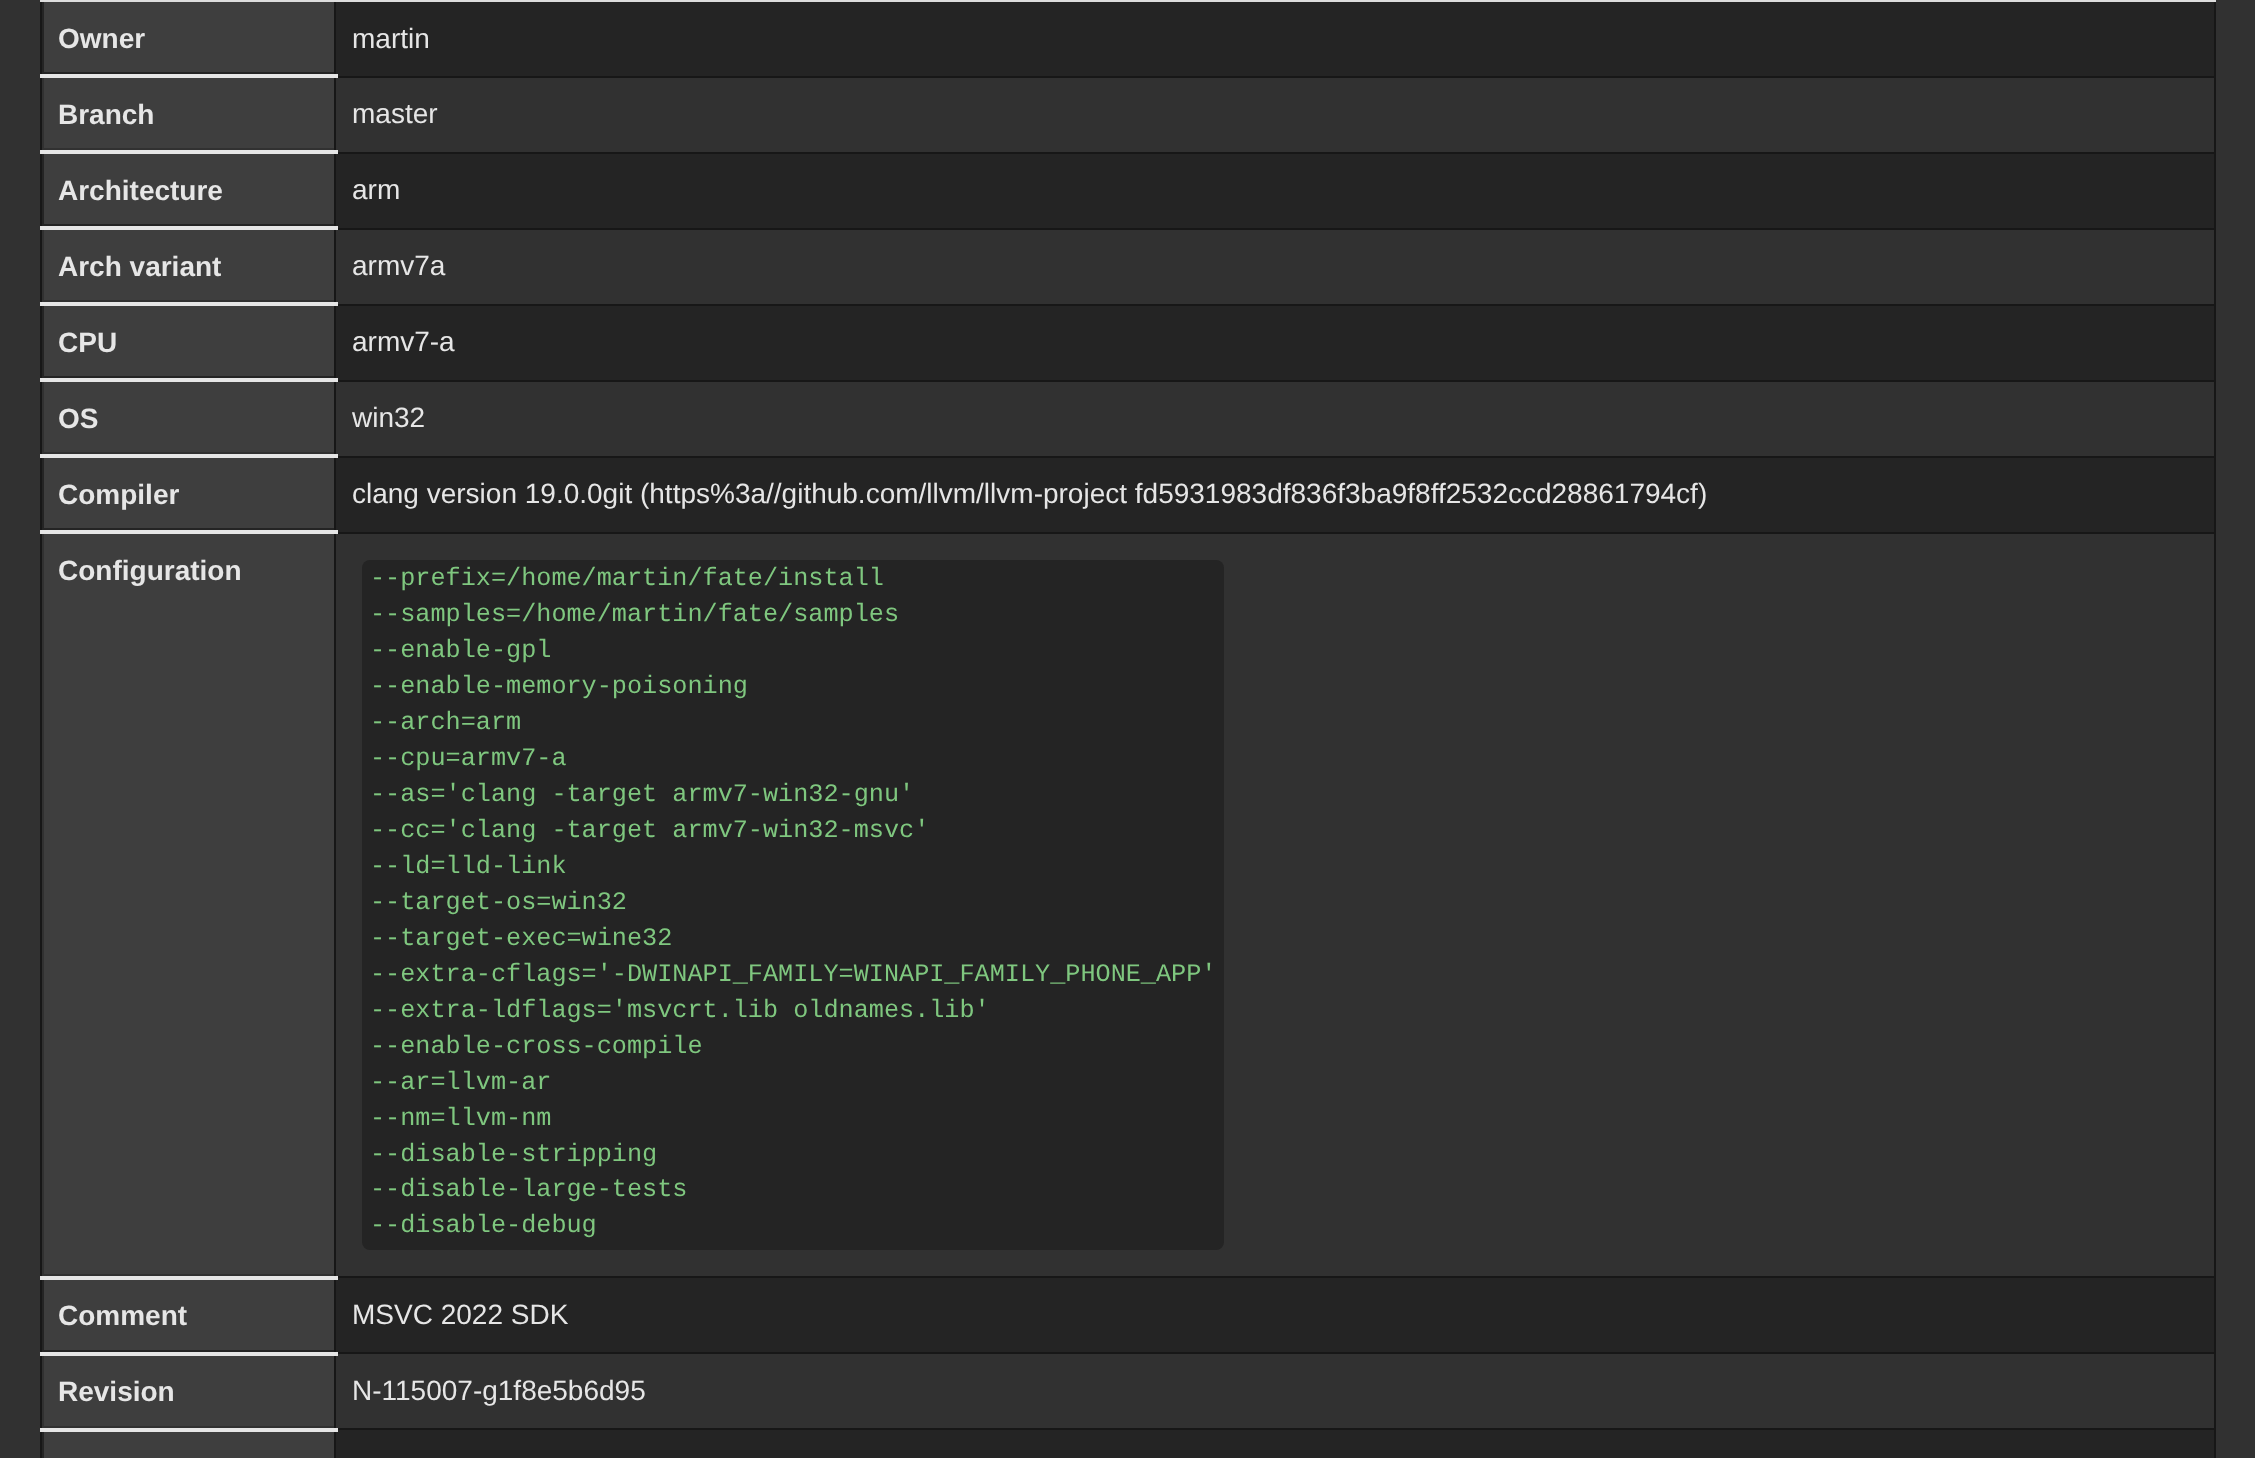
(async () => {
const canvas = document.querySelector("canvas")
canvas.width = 2255
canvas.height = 1458
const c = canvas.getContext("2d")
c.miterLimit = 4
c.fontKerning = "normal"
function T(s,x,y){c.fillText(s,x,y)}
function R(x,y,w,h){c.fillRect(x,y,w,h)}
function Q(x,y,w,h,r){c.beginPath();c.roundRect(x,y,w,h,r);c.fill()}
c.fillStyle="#313131"
R(0,0,2255,1458)
c.fillStyle="#171717"
R(40,0,2,1458)
R(2214,0,2,1458)
c.fillStyle="#242424"
R(42,2,2172,74)
R(42,154,2172,74)
R(42,306,2172,74)
R(42,458,2172,74)
R(42,1278,2172,74)
R(42,1430,2172,28)
c.fillStyle="#171717"
R(334,1428,2,30)
R(334,1428,1882,2)
R(334,1352,2,78)
R(334,1352,1882,2)
R(334,1276,2,78)
R(334,1276,1882,2)
R(334,532,2,746)
R(334,532,1882,2)
R(334,456,2,78)
R(334,456,1882,2)
R(334,380,2,78)
R(334,380,1882,2)
R(334,304,2,78)
R(334,304,1882,2)
R(334,228,2,78)
R(334,228,1882,2)
R(334,152,2,78)
R(334,152,1882,2)
R(334,76,2,78)
R(334,76,1882,2)
R(334,0,2,78)
c.fillStyle="#ddd"
R(40,0,2176,2)
c.fillStyle="#3e3e3e"
R(44,1432,290,26)
R(44,2,290,70)
c.fillStyle="#e6e6e6"
R(40,74,298,4)
c.font="bold 28px Liberation Sans"
T("Owner",58,48)
c.font="28px Liberation Sans"
T("martin",352,48)
c.fillStyle="#3e3e3e"
R(44,78,290,70)
c.fillStyle="#e6e6e6"
R(40,150,298,4)
c.font="bold 28px Liberation Sans"
T("Branch",58,124)
c.font="28px Liberation Sans"
T("master",352,123)
c.fillStyle="#3e3e3e"
R(44,154,290,70)
c.fillStyle="#e6e6e6"
R(40,226,298,4)
c.font="bold 28px Liberation Sans"
T("Architecture",58,200)
c.font="28px Liberation Sans"
T("arm",352,199)
c.fillStyle="#3e3e3e"
R(44,230,290,70)
c.fillStyle="#e6e6e6"
R(40,302,298,4)
c.font="bold 28px Liberation Sans"
T("Arch variant",58,276)
c.font="28px Liberation Sans"
T("armv7a",352,275)
c.fillStyle="#3e3e3e"
R(44,306,290,70)
c.fillStyle="#e6e6e6"
R(40,378,298,4)
c.font="bold 28px Liberation Sans"
T("CPU",58,352)
c.font="28px Liberation Sans"
T("armv7-a",352,351)
c.fillStyle="#3e3e3e"
R(44,382,290,70)
c.fillStyle="#e6e6e6"
R(40,454,298,4)
c.font="bold 28px Liberation Sans"
T("OS",58,428)
c.font="28px Liberation Sans"
T("win32",352,427)
c.fillStyle="#3e3e3e"
R(44,458,290,70)
c.fillStyle="#e6e6e6"
R(40,530,298,4)
c.font="bold 28px Liberation Sans"
T("Compiler",58,504)
c.font="28px Liberation Sans"
T("clang version 19.0.0git (https%3a//github.com/llvm/llvm-project fd5931983df836f3ba9f8ff2532ccd28861794cf)",352,503)
c.fillStyle="#3e3e3e"
R(44,534,290,740)
c.fillStyle="#e6e6e6"
R(40,1276,298,4)
c.font="bold 28px Liberation Sans"
T("Configuration",58,580)
c.fillStyle="#242424"
Q(362,560,862,690,8)
c.font="25.2px Liberation Mono"
c.fillStyle="#7fc77f"
T("--prefix=/home/martin/fate/install",370,585)
T("--samples=/home/martin/fate/samples",370,621)
T("--enable-gpl",370,657)
T("--enable-memory-poisoning",370,693)
T("--arch=arm",370,729)
T("--cpu=armv7-a",370,765)
T("--as='clang -target armv7-win32-gnu'",370,801)
T("--cc='clang -target armv7-win32-msvc'",370,837)
T("--ld=lld-link",370,873)
T("--target-os=win32",370,909)
T("--target-exec=wine32",370,945)
T("--extra-cflags='-DWINAPI_FAMILY=WINAPI_FAMILY_PHONE_APP'",370,981)
T("--extra-ldflags='msvcrt.lib oldnames.lib'",370,1017)
T("--enable-cross-compile",370,1053)
T("--ar=llvm-ar",370,1089)
T("--nm=llvm-nm",370,1125)
T("--disable-stripping",370,1161)
T("--disable-large-tests",370,1196)
T("--disable-debug",370,1232)
c.fillStyle="#3e3e3e"
R(44,1280,290,70)
c.fillStyle="#e6e6e6"
R(40,1352,298,4)
c.font="bold 28px Liberation Sans"
T("Comment",58,1325)
c.font="28px Liberation Sans"
T("MSVC 2022 SDK",352,1324)
c.fillStyle="#3e3e3e"
R(44,1356,290,70)
c.fillStyle="#e6e6e6"
R(40,1428,298,4)
c.font="bold 28px Liberation Sans"
T("Revision",58,1401)
c.font="28px Liberation Sans"
T("N-115007-g1f8e5b6d95",352,1400)
})()
